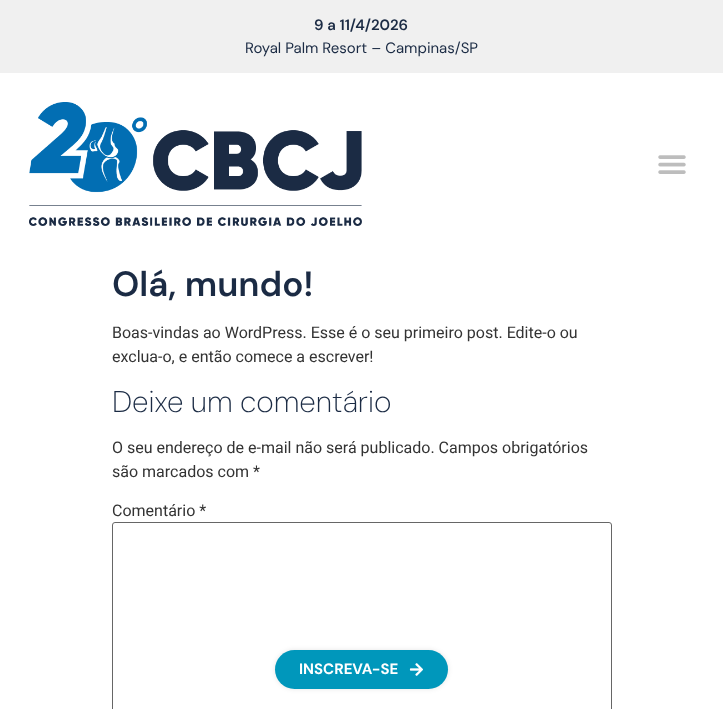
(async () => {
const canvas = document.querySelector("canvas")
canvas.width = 723
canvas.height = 709
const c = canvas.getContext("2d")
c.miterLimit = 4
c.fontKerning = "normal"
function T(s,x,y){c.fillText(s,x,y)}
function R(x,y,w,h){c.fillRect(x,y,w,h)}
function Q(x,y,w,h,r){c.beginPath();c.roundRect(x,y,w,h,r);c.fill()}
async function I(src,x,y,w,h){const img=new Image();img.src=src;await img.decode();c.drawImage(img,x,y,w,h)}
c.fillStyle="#fff"
R(0,0,723,709)
c.fillStyle="#f0f0f0"
R(0,0,723,73)
c.font="600 15px DM Sans"
c.fillStyle="#1b2b44"
T("9 a 11/4/2026",314,30)
c.font="15px DM Sans"
T("Royal Palm Resort – Campinas/SP",245,53)
await I("1.png",29,102,333,124)
await I("2.png",658,155,28,19)
c.font="600 35px DM Sans"
T("Olá, mundo!",112,296)
c.font="16px Roboto"
c.fillStyle="#333"
T("Boas-vindas ao WordPress. Esse é o seu primeiro post. Edite-o ou",112,338)
T("exclua-o, e então comece a escrever!",112,362)
c.font="200 30px DM Sans"
c.fillStyle="#1b2b44"
T("Deixe um comentário",112,412)
c.font="16px Roboto"
c.fillStyle="#333"
T("O seu endereço de e-mail não será publicado. Campos obrigatórios",112,453)
T("são marcados com *",112,477)
T("Comentário *",112,516)
c.beginPath()
c.roundRect(112.5,522.5,499,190,2.5)
c.strokeStyle="#666"
c.stroke()
c.fillStyle="#0000001a"
c.filter="blur(2.5px)"
c.beginPath()
c.roundRect(275,650,173,39,19.5)
c.fill()
c.filter="none"
c.fillStyle="#0097bb"
Q(275,650,173,39,19.5)
c.font="bold 15px DM Sans"
c.fillStyle="#fff"
T("INSCREVA-SE",299,674)
await I("3.png",409,663,14,13)
})()
